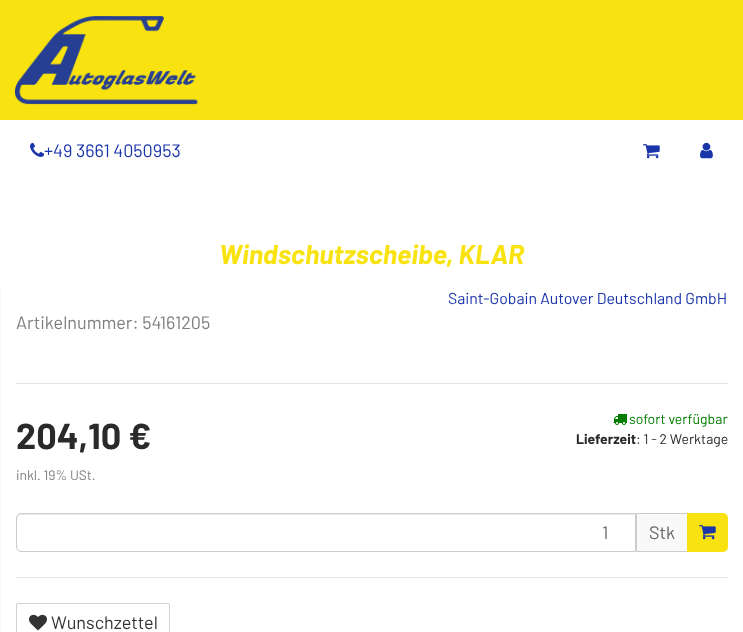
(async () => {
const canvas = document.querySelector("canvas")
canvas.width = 743
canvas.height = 632
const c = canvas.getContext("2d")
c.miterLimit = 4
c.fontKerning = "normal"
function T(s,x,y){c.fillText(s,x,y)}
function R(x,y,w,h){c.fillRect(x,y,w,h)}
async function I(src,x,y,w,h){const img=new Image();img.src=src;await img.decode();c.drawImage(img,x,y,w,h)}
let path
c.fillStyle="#fff"
R(0,0,743,632)
c.fillStyle="#f8e310"
R(0,0,743,120)
await I("1.png",15,15,183,90)
await I("2.png",30,142,15,15)
c.font="18px Barlow"
c.fillStyle="#1a35aa"
T("+49 3661 4050953",44,157)
await I("3.png",643,144,17,15)
await I("4.png",700,142,13,17)
c.font="italic bold 27px Barlow"
c.fillStyle="#f8e310"
T("Windschutzscheibe, KLAR",219,264)
c.fillStyle="#f9f9f9"
R(0,287,1,345)
c.font="15.8px Barlow"
c.fillStyle="#1a35aa"
T("Saint-Gobain Autover Deutschland GmbH",448,304)
c.font="18px Barlow"
c.fillStyle="#7f7f7f"
T("Artikelnummer: 54161205",16,329)
c.fillStyle="#e5e5e5"
R(16,383,712,1)
c.font="bold 36px Barlow"
c.fillStyle="#2a2a2a"
T("204,10 €",16,449)
c.font="13.75px Barlow"
c.fillStyle="#7f7f7f"
T("inkl. 19% USt.",16,480)
await I("5.png",613,414,14,11)
c.font="14px Barlow"
c.fillStyle="#007c00"
T("sofort verfügbar",629,424)
c.font="bold 14px Barlow"
c.fillStyle="#2a2a2a"
T("Lieferzeit",576,444)
c.font="14px Barlow"
T(": 1 - 2 Werktage",636,444)
c.fillStyle="#ececec"
path = new Path2D("M21 515h614v-1h-614c-3 0-4 2-4 5c0-2 2-4 4-4z")
c.fill(path)
c.beginPath()
c.roundRect(16.5,513.5,619,38,[4.5,0,0,4.5])
c.strokeStyle="#ccc"
c.stroke()
c.font="18px Barlow"
c.fillStyle="#666"
T("1",602,539)
c.fillStyle="#f9f9f9"
c.beginPath()
c.rect(636.5,513.5,51,38)
c.fill()
c.stroke()
c.fillStyle="#666"
T("Stk",649,539)
c.fillStyle="#f8e310"
c.beginPath()
c.roundRect(687,513,41,39,[0,5,5,0])
c.fill()
await I("6.png",699,525,17,15)
c.fillStyle="#e5e5e5"
R(16,577,712,1)
c.beginPath()
c.roundRect(16.5,603.5,153,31,1.5)
c.strokeStyle="#d1d1d1"
c.stroke()
await I("7.png",29,614,18,17)
c.fillStyle="#333"
T("Wunschzettel",51,629)
})()
